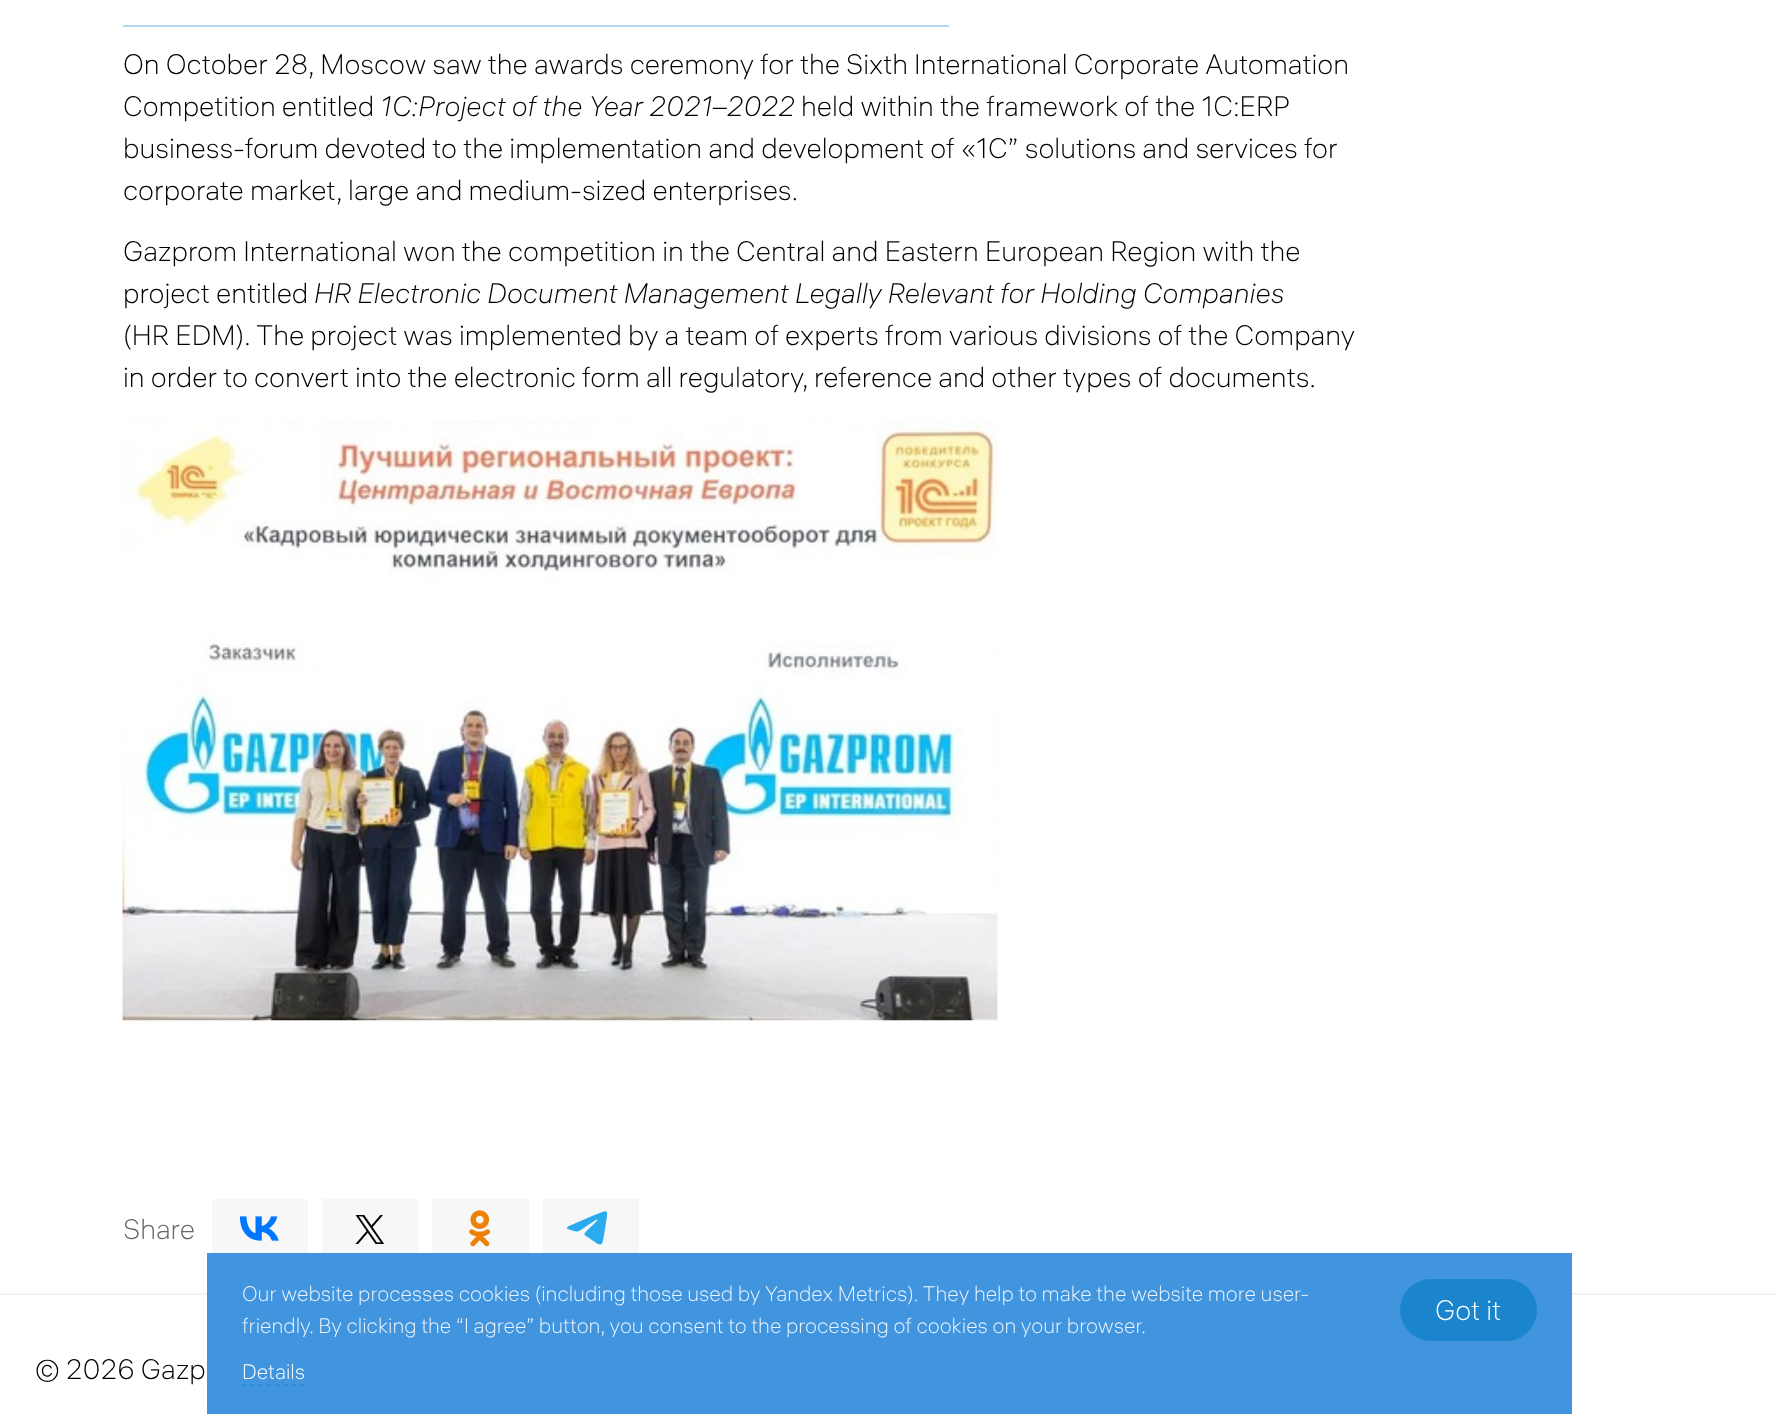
(async () => {
const canvas = document.querySelector("canvas")
canvas.width = 1777
canvas.height = 1414
const c = canvas.getContext("2d")
c.miterLimit = 4
c.fontKerning = "normal"
function T(s,x,y){c.fillText(s,x,y)}
function R(x,y,w,h){c.fillRect(x,y,w,h)}
function Q(x,y,w,h,r){c.beginPath();c.roundRect(x,y,w,h,r);c.fill()}
async function I(src,x,y,w,h){const img=new Image();img.src=src;await img.decode();c.drawImage(img,x,y,w,h)}
let path
c.fillStyle="#fff"
R(0,0,1777,1414)
c.fillStyle="#b3d7ec"
R(123,25,826,2)
c.font="300 28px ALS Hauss"
c.fillStyle="#000"
T("On October 28, Moscow saw the awards ceremony for the Sixth International Corporate Automation",123,74)
T("Competition entitled",123,116)
c.font="italic 300 28px ALS Hauss"
T("1C:Project of the Year 2021–2022",380,116)
c.font="300 28px ALS Hauss"
T("held within the framework of the 1C:ERP",801,116)
T("business-forum devoted to the implementation and development of «1C” solutions and services for",123,158)
T("corporate market, large and medium-sized enterprises.",123,200)
T("Gazprom International won the competition in the Central and Eastern European Region with the",123,261)
T("project entitled",123,303)
c.font="italic 300 28px ALS Hauss"
T("HR Electronic Document Management Legally Relevant for Holding Companies",314,303)
c.font="300 28px ALS Hauss"
T("(HR EDM). The project was implemented by a team of experts from various divisions of the Company",123,345)
T("in order to convert into the electronic form all regulatory, reference and other types of documents.",123,387)
await I("1.png",122,420,876,601)
c.fillStyle="#666"
T("Share",123,1239)
c.fillStyle="#f7f7f7"
R(212,1199,96,54)
await I("2.png",240,1216,39,25)
R(322,1199,96,54)
await I("3.png",355,1215,30,29)
R(432,1199,97,54)
await I("4.png",469,1210,22,37)
R(543,1199,96,54)
await I("5.png",567,1211,41,34)
c.fillStyle="#f3f3f3"
R(0,1293,1777,2)
c.fillStyle="#000"
T("© 2026 Gazp",35,1379)
c.fillStyle="#4195df"
R(207,1253,1365,161)
c.font="300 21px ALS Hauss"
c.fillStyle="#ecf4fc"
T("Our website processes cookies (including those used by Yandex Metrics). They help to make the website more user-",242,1301)
T("friendly. By clicking the “I agree” button, you consent to the processing of cookies on your browser.",242,1333)
c.fillStyle="#fff"
T("Details",242,1379)
path = new Path2D("M241.5 1385h63")
c.strokeStyle="#2e8dd6"
c.lineWidth=1.8
c.setLineDash([5.25,2.99])
c.stroke(path)
c.fillStyle="#1a85cd"
Q(1400,1279,137,62,31)
c.font="300 28px ALS Hauss"
c.fillStyle="#fff"
T("Got it",1435,1320)
})()
